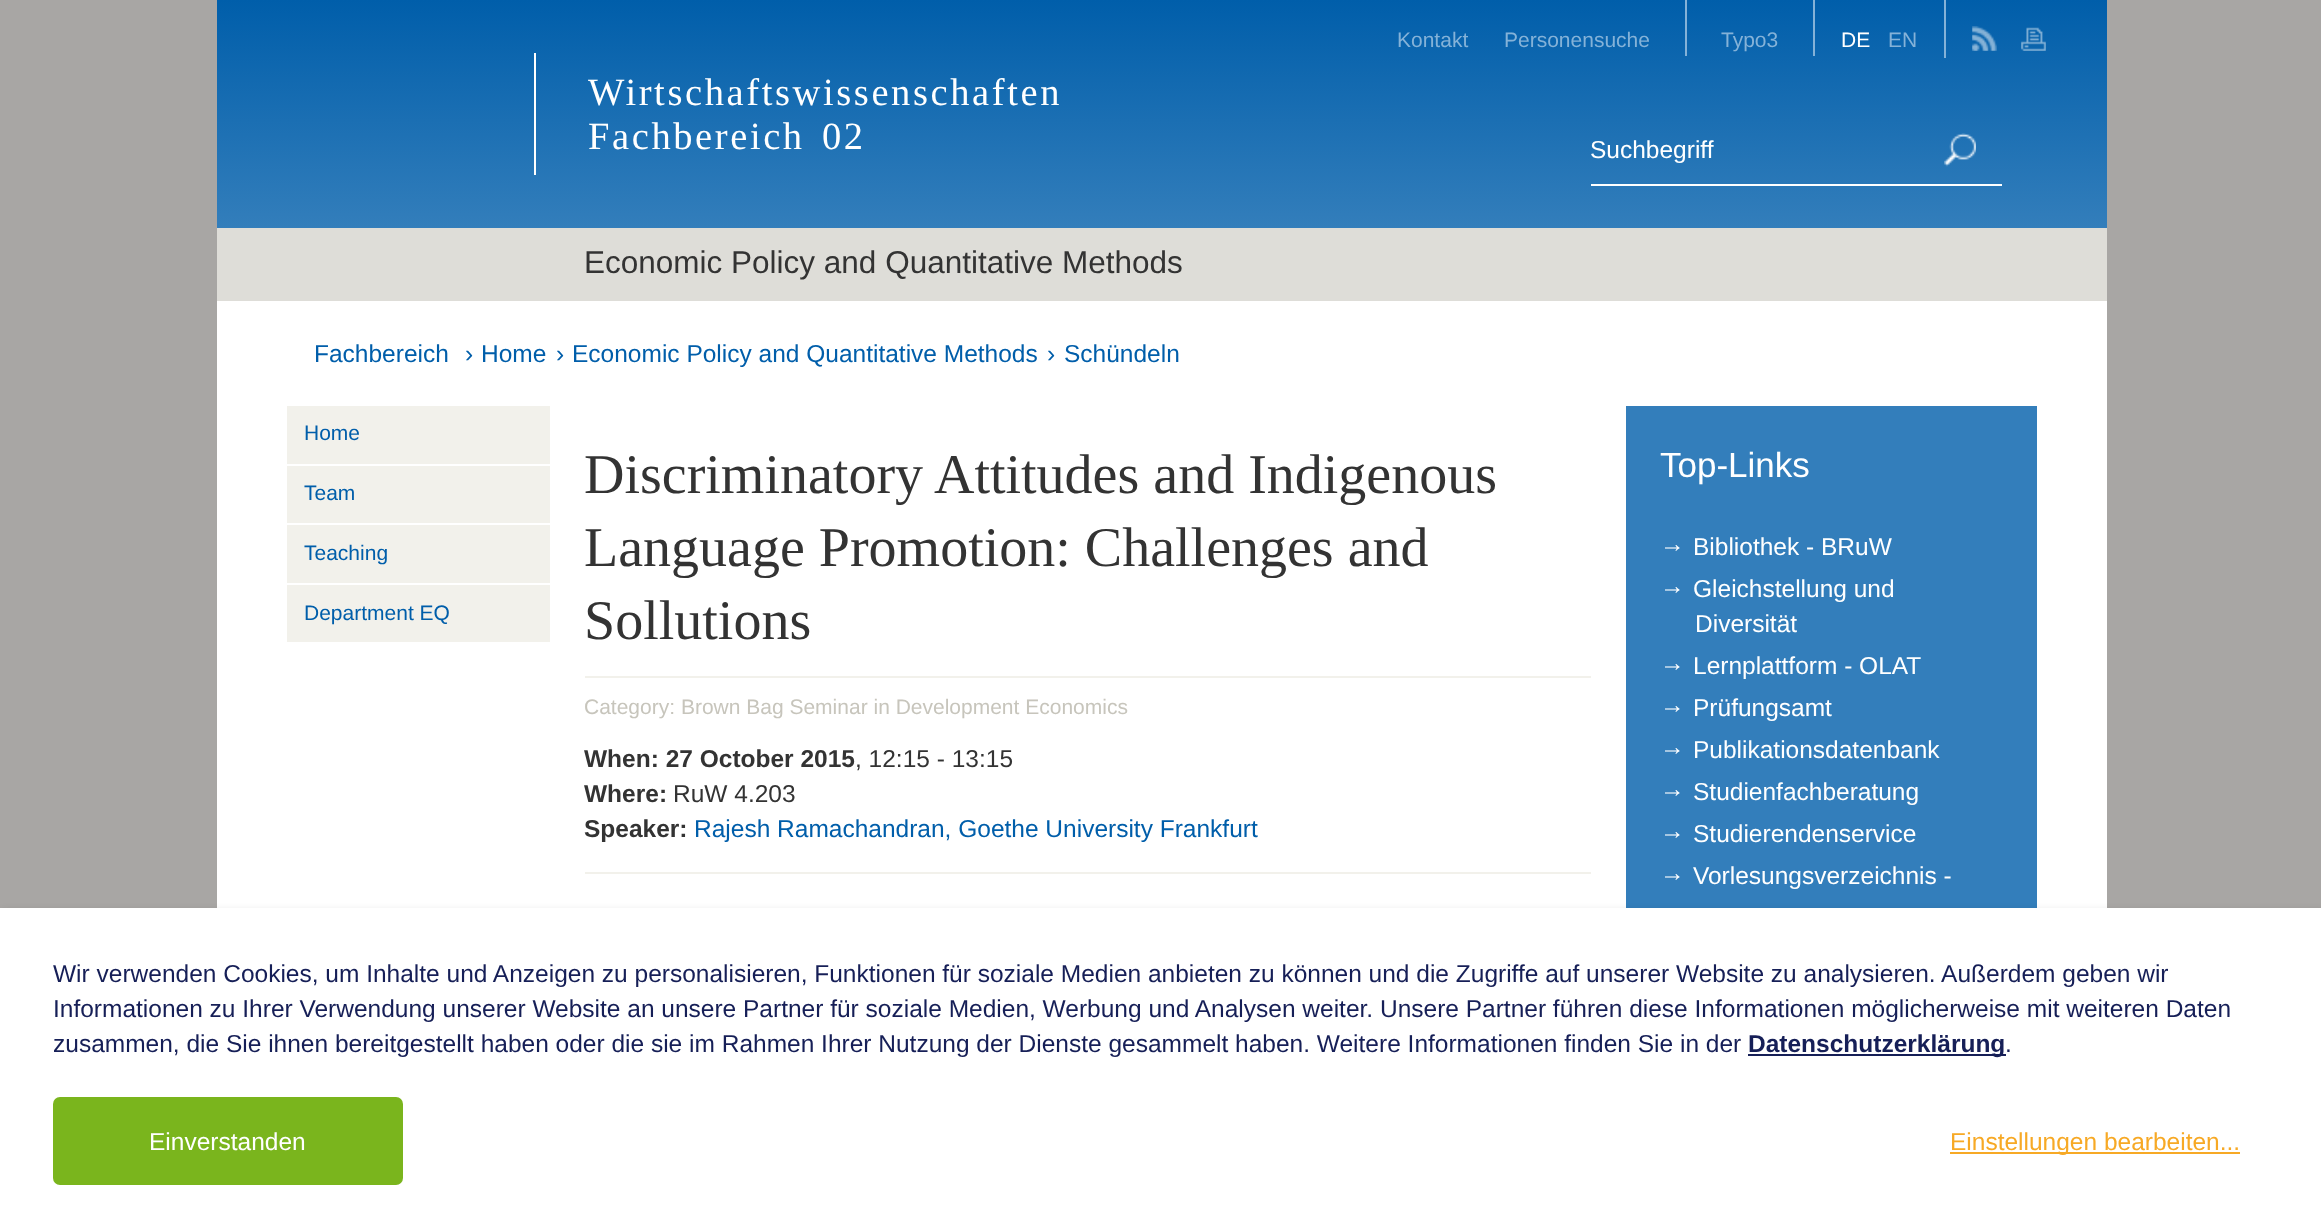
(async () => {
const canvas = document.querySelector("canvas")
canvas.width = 2321
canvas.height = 1232
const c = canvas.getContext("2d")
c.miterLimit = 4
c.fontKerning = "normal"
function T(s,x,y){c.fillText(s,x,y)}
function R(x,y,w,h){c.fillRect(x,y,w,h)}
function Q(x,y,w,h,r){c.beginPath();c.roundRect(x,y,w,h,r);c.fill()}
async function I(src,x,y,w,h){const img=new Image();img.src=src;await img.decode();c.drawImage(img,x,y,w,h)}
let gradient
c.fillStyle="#a8a6a4"
R(0,0,2321,1232)
gradient = c.createLinearGradient(1162,0,1162,228)
gradient.addColorStop(0,"#005eaa")
gradient.addColorStop(1,"#337ebb")
c.fillStyle = gradient
R(217,0,1890,228)
c.font="21px Liberation Sans"
c.fillStyle="#84b2d8"
T("Kontakt",1397,47)
T("Personensuche",1504,47)
R(1685,0,2,56)
T("Typo3",1721,47)
R(1813,0,2,56)
c.fillStyle="#fff"
T("DE",1841,47)
c.fillStyle="#84b2d8"
T("EN",1888,47)
R(1944,0,2,58)
await I("1.png",1972,26,25,25)
await I("2.png",2021,27,25,24)
c.fillStyle="#fff"
R(1591,184,411,2)
c.font="24.5px Liberation Sans"
T("Suchbegriff",1590,158)
await I("3.png",1944,133,32,34)
c.fillStyle="#deddd8"
R(217,228,1890,73)
c.font="31.5px Liberation Sans"
c.fillStyle="#333"
T("Economic Policy and Quantitative Methods",584,273)
c.fillStyle="#fff"
R(534,53,2,122)
c.letterSpacing="2.6px"
c.font="38.5px Liberation Serif"
T("Wirtschaftswissenschaften",588,105)
T("Fachbereich",588,149)
T("02",822,149)
R(217,301,1890,607)
c.letterSpacing="0px"
c.font="24.5px Liberation Sans"
c.fillStyle="#005eaa"
T("Fachbereich",314,362)
T("›",465,362)
T("Home",481,362)
T("›",556,362)
T("Economic Policy and Quantitative Methods",572,362)
T("›",1047,362)
T("Schündeln",1064,362)
c.fillStyle="#f2f1eb"
R(287,406,263,58)
c.font="21px Liberation Sans"
c.fillStyle="#005eaa"
T("Home",304,440)
c.fillStyle="#f2f1eb"
R(287,466,263,57)
c.fillStyle="#005eaa"
T("Team",304,500)
c.fillStyle="#f2f1eb"
R(287,525,263,58)
c.fillStyle="#005eaa"
T("Teaching",304,560)
c.fillStyle="#f2f1eb"
R(287,585,263,57)
c.fillStyle="#005eaa"
T("Department EQ",304,620)
c.fillStyle="#f2f1eb"
R(585,676,1006,2)
c.font="56px Liberation Serif"
c.fillStyle="#333"
T("Discriminatory Attitudes and Indigenous",584,493)
T("Language Promotion: Challenges and",584,566)
T("Sollutions",584,639)
c.font="21px Liberation Sans"
c.fillStyle="#c7c5bc"
T("Category: Brown Bag Seminar in Development Economics",584,714)
c.font="bold 24.5px Liberation Sans"
c.fillStyle="#333"
T("When: 27 October 2015",584,767)
c.font="24.5px Liberation Sans"
T(", 12:15 - 13:15",855,767)
c.font="bold 24.5px Liberation Sans"
T("Where:",584,802)
c.font="24.5px Liberation Sans"
T("RuW 4.203",673,802)
c.font="bold 24.5px Liberation Sans"
T("Speaker:",584,837)
c.font="24.5px Liberation Sans"
c.fillStyle="#005eaa"
T("Rajesh Ramachandran, Goethe University Frankfurt",694,837)
c.fillStyle="#f2f1eb"
R(585,872,1006,2)
c.fillStyle="#337ebb"
R(1626,406,411,502)
c.font="35px Liberation Sans"
c.fillStyle="#fff"
T("Top-Links",1660,477)
c.font="24.5px Liberation Sans"
T("→",1660,552)
T("Bibliothek - BRuW",1693,555)
T("→",1660,594)
T("Gleichstellung und",1693,597)
T("Diversität",1695,632)
T("→",1660,671)
T("Lernplattform - OLAT",1693,674)
T("→",1660,713)
T("Prüfungsamt",1693,716)
T("→",1660,755)
T("Publikationsdatenbank",1693,758)
T("→",1660,797)
T("Studienfachberatung",1693,800)
T("→",1660,839)
T("Studierendenservice",1693,842)
T("→",1660,881)
T("Vorlesungsverzeichnis -",1693,884)
c.fillStyle="#00000033"
c.filter="blur(4.5px)"
c.beginPath()
c.rect(2,912,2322,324)
c.fill()
c.filter="none"
c.fillStyle="#fff"
R(0,908,2321,324)
c.fillStyle="#161f57"
T("Wir verwenden Cookies, um Inhalte und Anzeigen zu personalisieren, Funktionen für soziale Medien anbieten zu können und die Zugriffe auf unserer Website zu analysieren. Außerdem geben wir",53,982)
T("Informationen zu Ihrer Verwendung unserer Website an unsere Partner für soziale Medien, Werbung und Analysen weiter. Unsere Partner führen diese Informationen möglicherweise mit weiteren Daten",53,1017)
T("zusammen, die Sie ihnen bereitgestellt haben oder die sie im Rahmen Ihrer Nutzung der Dienste gesammelt haben. Weitere Informationen finden Sie in der",53,1052)
R(1748,1054,258,2)
c.font="bold 24.5px Liberation Sans"
T("Datenschutzerklärung",1748,1052)
c.font="24.5px Liberation Sans"
T(".",2005,1052)
c.fillStyle="#7ab51d"
Q(53,1097,350,88,7)
c.fillStyle="#fff"
T("Einverstanden",149,1150)
c.fillStyle="#f7a925"
R(1950,1152,290,2)
T("Einstellungen bearbeiten...",1950,1150)
})()
